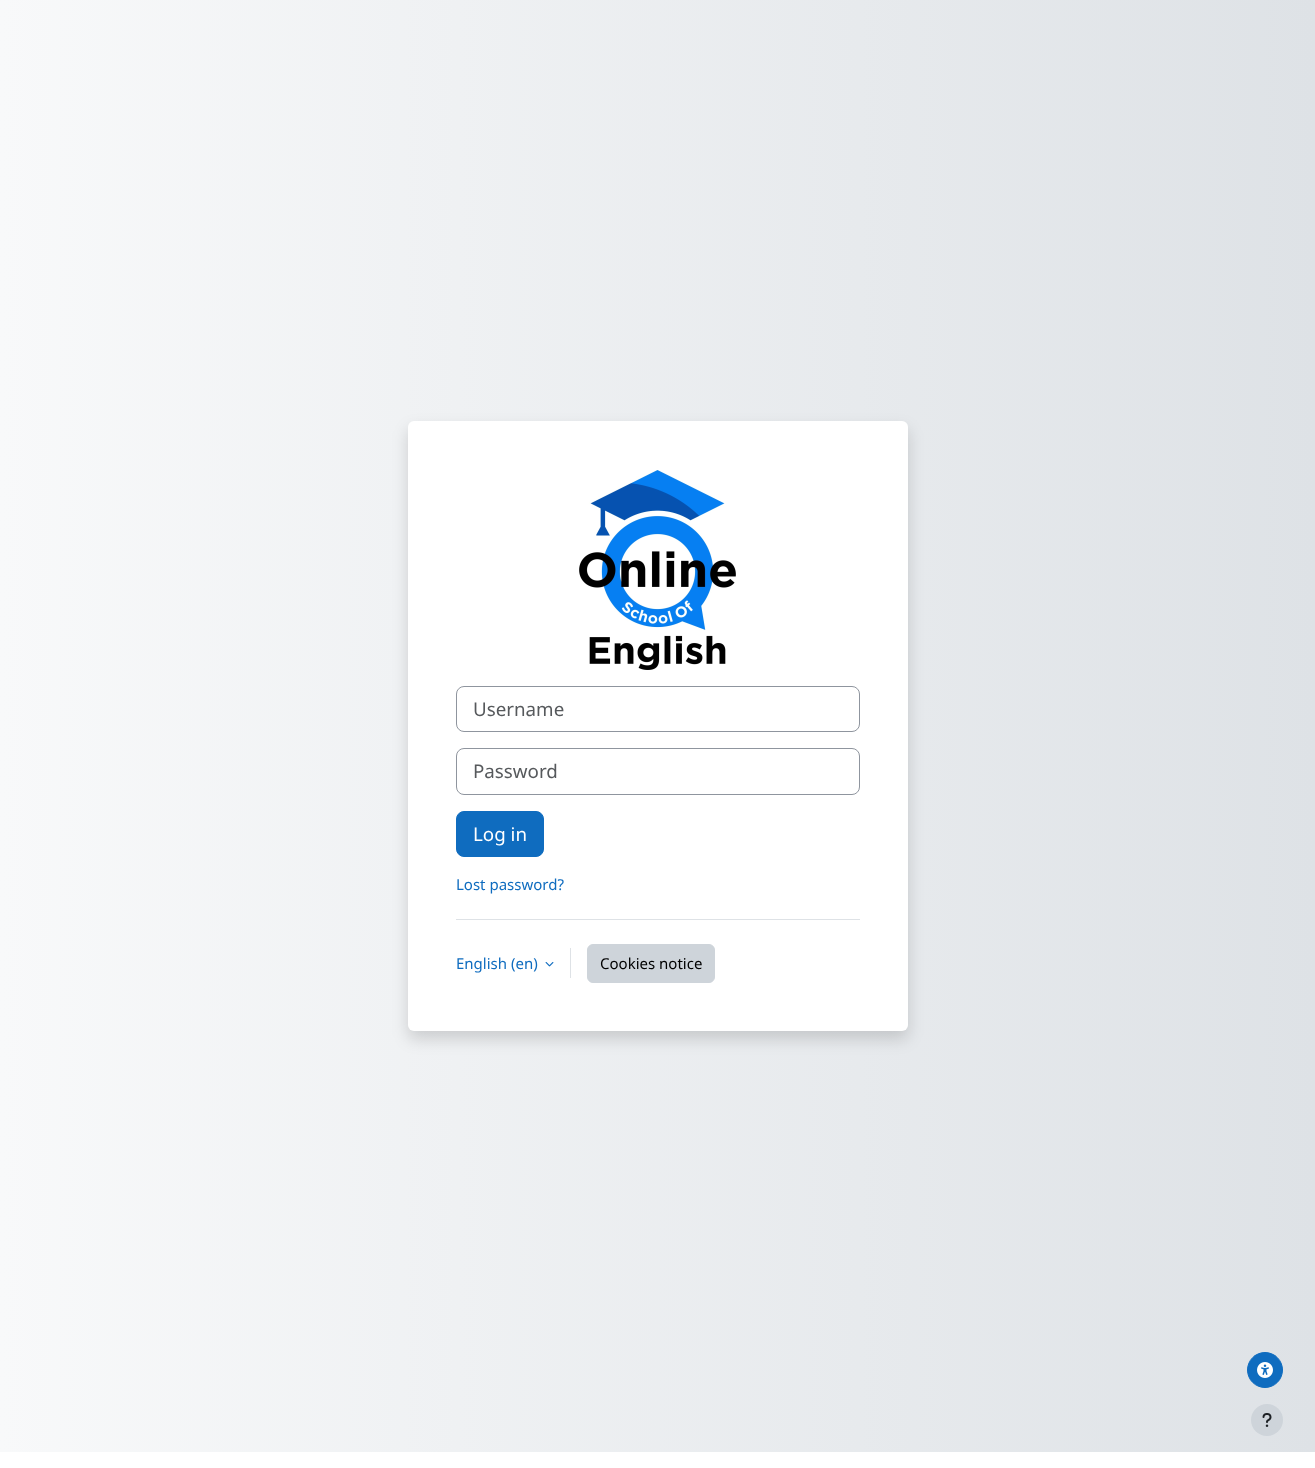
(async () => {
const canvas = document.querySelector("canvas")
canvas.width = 1315
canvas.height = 1468
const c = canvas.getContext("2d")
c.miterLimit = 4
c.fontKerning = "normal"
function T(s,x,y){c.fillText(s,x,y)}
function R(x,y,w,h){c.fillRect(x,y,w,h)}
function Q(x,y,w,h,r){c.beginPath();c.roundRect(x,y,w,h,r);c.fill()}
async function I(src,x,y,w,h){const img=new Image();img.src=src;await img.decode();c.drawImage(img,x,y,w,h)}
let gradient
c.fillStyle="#fff"
R(0,0,1315,1468)
gradient = c.createLinearGradient(0,726,1315,726)
gradient.addColorStop(0,"#f8f9fa")
gradient.addColorStop(1,"#dee2e6")
c.fillStyle = gradient
R(0,0,1315,1452)
c.fillStyle="#00000026"
c.filter="blur(8px)"
c.beginPath()
c.roundRect(408,429,500,610,6)
c.fill()
c.filter="none"
c.fillStyle="#fff"
Q(408,421,500,610,6)
await I("1.png",579,470,157,200)
c.beginPath()
c.roundRect(456.5,686.5,403,45,7.5)
c.strokeStyle="#8f959e"
c.stroke()
c.font="18.75px Noto Sans"
c.fillStyle="#56595c"
T("Username",473,716)
c.beginPath()
c.roundRect(456.5,748.5,403,46,7.5)
c.stroke()
T("Password",473,778)
c.fillStyle="#0f6cbf"
c.beginPath()
c.roundRect(456.5,811.5,87,45,7.5)
c.fill()
c.strokeStyle="#0f6cbf"
c.stroke()
c.fillStyle="#fff"
T("Log in",473,841)
c.font="15px Noto Sans"
c.fillStyle="#0f6cbf"
T("Lost password?",456,890)
c.fillStyle="#dee2e6"
R(456,919,404,1)
c.fillStyle="#0f6cbf"
T("English (en)",456,969)
await I("2.png",545,962,9,5)
c.fillStyle="#dee2e6"
R(570,948,1,30)
c.fillStyle="#ced4da"
c.beginPath()
c.roundRect(587.5,944.5,127,38,5.5)
c.fill()
c.strokeStyle="#ced4da"
c.stroke()
c.fillStyle="#000"
T("Cookies notice",600,969)
c.fillStyle="#0f6cbf"
c.beginPath()
c.arc(1265,1370,17.5,0,7)
c.fill()
c.strokeStyle="#0f6cbf"
c.stroke()
await I("3.png",1257,1362,16,16)
c.fillStyle="#ced4da"
c.beginPath()
c.arc(1267,1420,16,0,7)
c.fill()
await I("4.png",1262,1413,10,14)
})()
